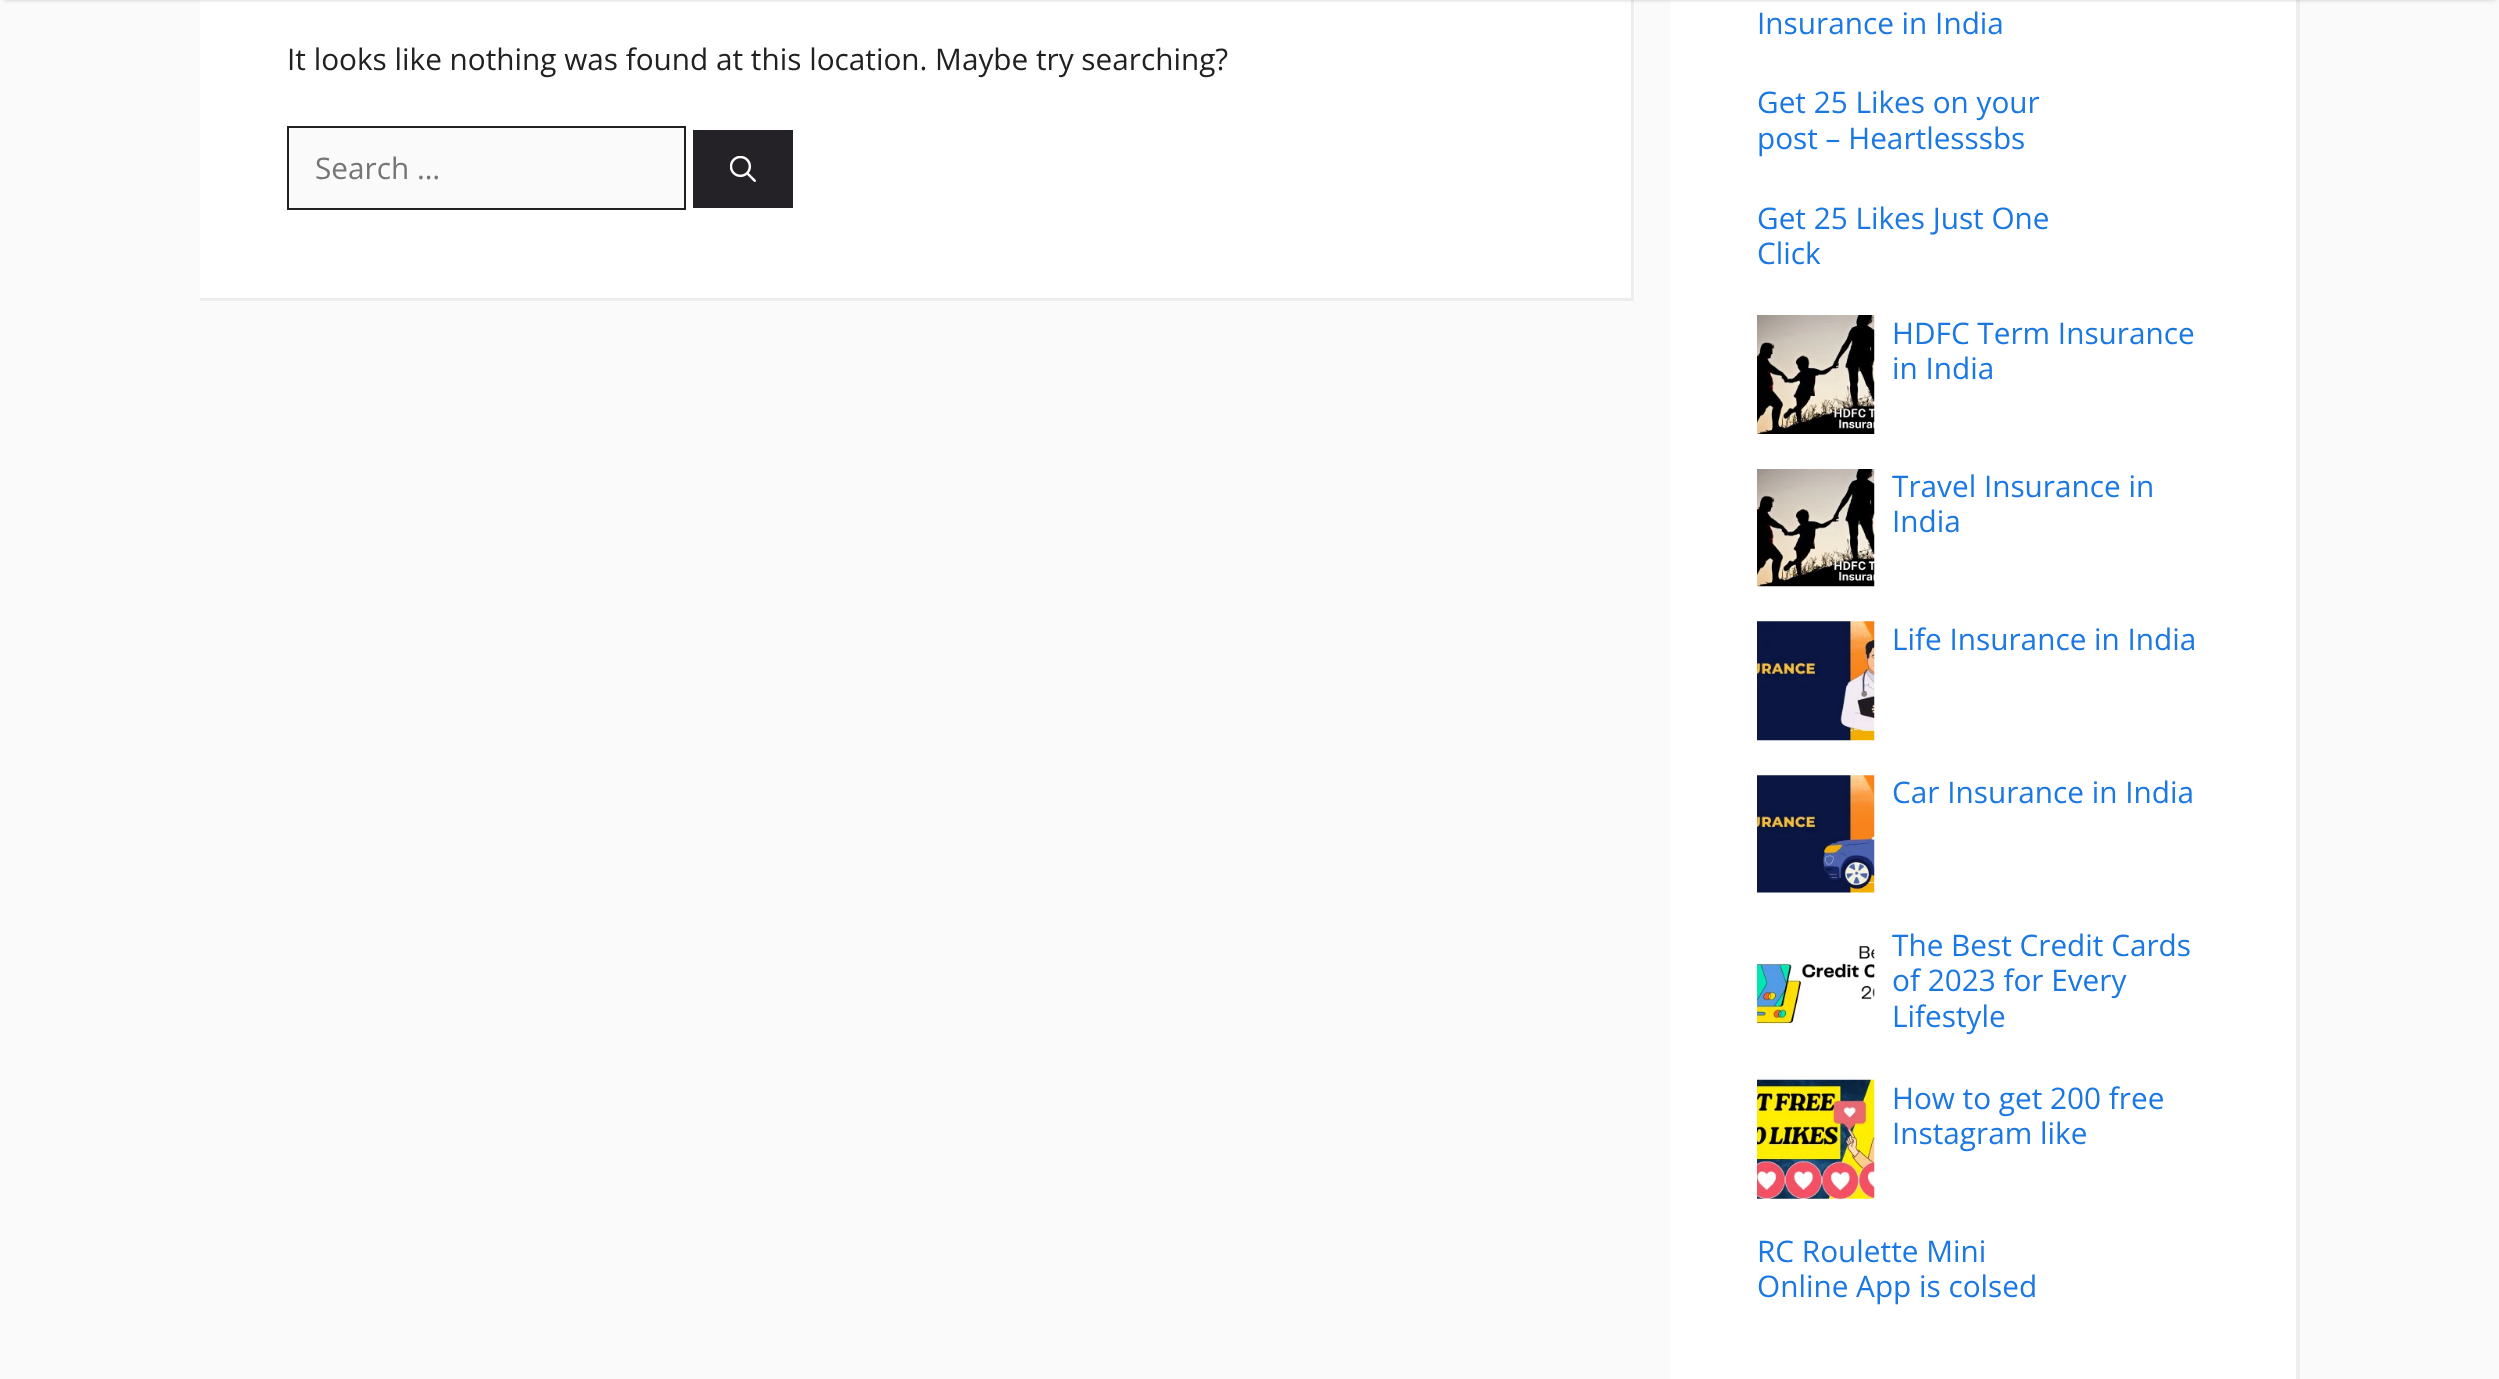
(async () => {
const canvas = document.querySelector("canvas")
canvas.width = 2499
canvas.height = 1379
const c = canvas.getContext("2d")
c.miterLimit = 4
c.fontKerning = "normal"
function T(s,x,y){c.fillText(s,x,y)}
function R(x,y,w,h){c.fillRect(x,y,w,h)}
async function I(src,x,y,w,h){const img=new Image();img.src=src;await img.decode();c.drawImage(img,x,y,w,h)}
let path
c.fillStyle="#fafafa"
R(0,0,2499,1379)
c.fillStyle="#fff"
R(200,0,1435,301)
c.fillStyle="#ededed"
path = new Path2D("M1634-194v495l-3-3v-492z")
c.fill(path)
c.fillStyle="#fff"
R(1670,0,626,1379)
c.fillStyle="#ededed"
path = new Path2D("M2300-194v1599l-4-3v-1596z")
c.fill(path)
c.fillStyle="#00000033"
c.filter="blur(2px)"
c.beginPath()
c.rect(4,-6,2492,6)
c.fill()
c.filter="none"
c.fillStyle="#00000012"
path = new Path2D("M1634 301h-1434v-3h1431z")
c.fill(path)
c.font="29.75px Open Sans"
c.fillStyle="#212121"
T("It looks like nothing was found at this location. Maybe try searching?",287,70)
c.fillStyle="#fafafa"
c.beginPath()
c.rect(288,127,397,82)
c.fill()
c.strokeStyle="#212121"
c.lineWidth=2
c.stroke()
c.fillStyle="#757575"
T("Search …",315,179)
c.fillStyle="#242226"
R(693,130,100,78)
await I("1.png",730,156,26,26)
c.fillStyle="#1b78e2"
T("Insurance in India",1757,34)
T("Get 25 Likes on your",1757,113)
T("post – Heartlesssbs",1757,149)
T("Get 25 Likes Just One",1757,229)
T("Click",1757,264)
await I("2.png",1757,315,118,119)
T("HDFC Term Insurance",1892,344)
T("in India",1892,379)
await I("3.png",1757,469,118,118)
T("Travel Insurance in",1892,497)
T("India",1892,532)
await I("4.png",1757,621,118,120)
T("Life Insurance in India",1892,650)
await I("5.png",1757,775,118,118)
T("Car Insurance in India",1892,803)
await I("6.png",1757,945,118,83)
T("The Best Credit Cards",1892,956)
T("of 2023 for Every",1892,991)
T("Lifestyle",1892,1027)
await I("7.png",1757,1079,118,120)
T("How to get 200 free",1892,1109)
T("Instagram like",1892,1144)
T("RC Roulette Mini",1757,1262)
T("Online App is colsed",1757,1297)
})()
